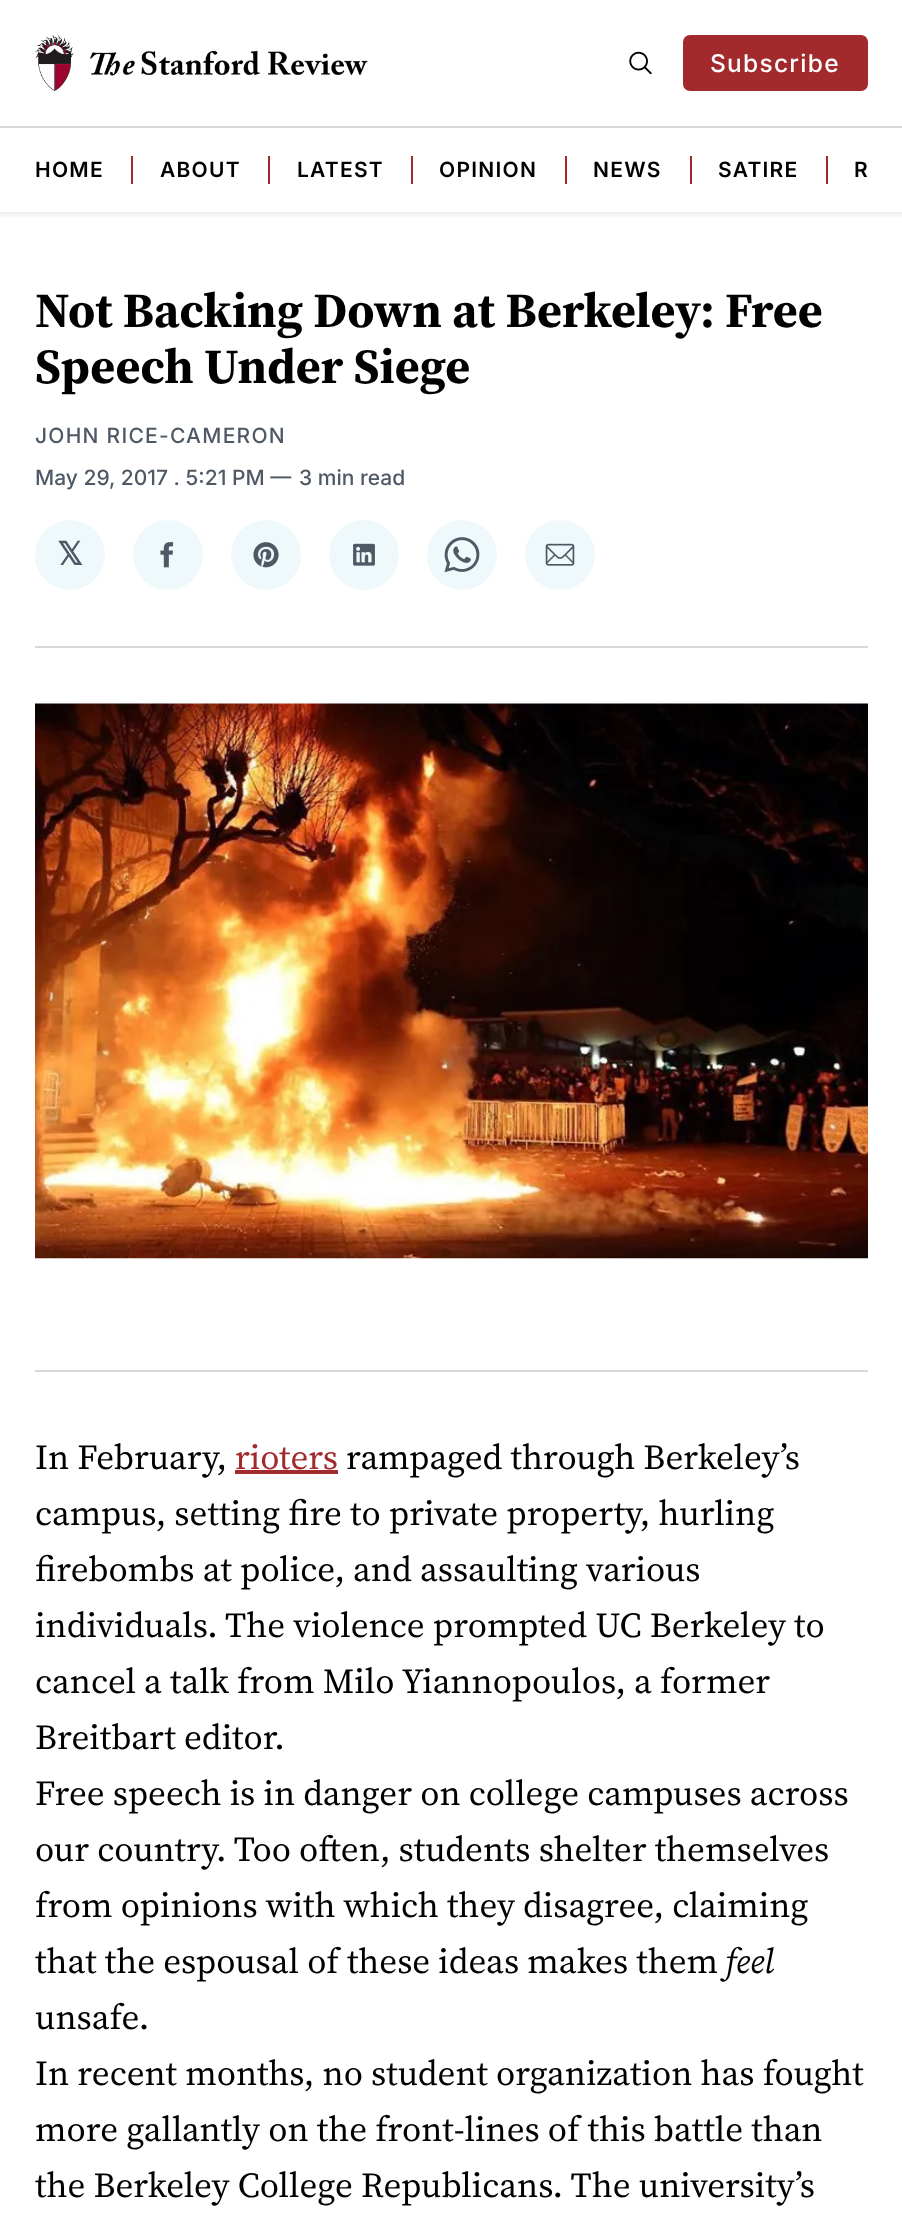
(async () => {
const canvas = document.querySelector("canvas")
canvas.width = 902
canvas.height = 2218
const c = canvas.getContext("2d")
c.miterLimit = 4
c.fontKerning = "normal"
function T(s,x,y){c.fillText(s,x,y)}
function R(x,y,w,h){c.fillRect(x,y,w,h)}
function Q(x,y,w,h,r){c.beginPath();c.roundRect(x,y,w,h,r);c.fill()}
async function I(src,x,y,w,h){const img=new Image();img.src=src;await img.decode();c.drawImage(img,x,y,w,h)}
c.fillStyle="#fff"
R(0,0,902,2218)
c.save()
c.beginPath()
c.rect(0,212,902,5)
c.clip()
c.fillStyle="#00000014"
c.filter="blur(3.5px)"
c.beginPath()
c.rect(-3,-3,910,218)
c.fill()
c.filter="none"
c.restore()
c.fillStyle="#d9d9d9"
R(0,126,902,2)
await I("1.png",35,35,333,56)
await I("2.png",629,51,23,24)
c.fillStyle="#a22a2c"
Q(683,35,185,56,7)
c.letterSpacing="1.25px"
c.font="500 24.5px Inter"
c.fillStyle="#fff"
T("Subscribe",710,72)
c.font="600 21px Inter"
c.fillStyle="#000"
T("HOME",35,177)
c.fillStyle="#a22a2c"
R(131,156,2,28)
c.fillStyle="#000"
T("ABOUT",160,177)
c.fillStyle="#a22a2c"
R(268,156,2,28)
c.fillStyle="#000"
T("LATEST",297,177)
c.fillStyle="#a22a2c"
R(411,156,2,28)
c.fillStyle="#000"
T("OPINION",439,177)
c.fillStyle="#a22a2c"
R(565,156,2,28)
c.fillStyle="#000"
T("NEWS",593,177)
c.fillStyle="#a22a2c"
R(690,156,2,28)
c.fillStyle="#000"
T("SATIRE",718,177)
c.fillStyle="#a22a2c"
R(826,156,2,28)
c.fillStyle="#000"
T("R",854,177)
c.fillStyle="#d9d9d9"
R(35,646,833,2)
c.letterSpacing="0px"
c.font="bold 49px 'Source Serif 4'"
c.fillStyle="#000"
T("Not Backing Down at Berkeley: Free",35,327)
T("Speech Under Siege",35,383)
c.letterSpacing="1.25px"
c.font="500 21px Inter"
c.fillStyle="#4e5965"
T("JOHN RICE-CAMERON",35,443)
c.letterSpacing="0px"
T("May 29, 2017 . 5:21 PM —",35,485)
T("3 min read",299,485)
c.fillStyle="#eff8fa"
c.beginPath()
c.arc(70,555,35,0,7)
c.fill()
c.font="bold 32px DejaVu Sans"
c.fillStyle="#4e5965"
T("𝕏",57,565)
c.fillStyle="#eff8fa"
c.beginPath()
c.arc(168,555,35,0,7)
c.fill()
await I("3.png",160,542,14,26)
c.beginPath()
c.arc(266,555,35,0,7)
c.fill()
await I("4.png",253,542,26,26)
c.beginPath()
c.arc(364,555,35,0,7)
c.fill()
await I("5.png",353,543,22,23)
c.beginPath()
c.arc(462,555,35,0,7)
c.fill()
await I("6.png",444,537,36,36)
c.beginPath()
c.arc(560,555,35,0,7)
c.fill()
await I("7.png",545,543,30,23)
await I("8.png",35,703,833,556)
c.fillStyle="#d9d9d9"
R(35,1370,833,2)
c.font="35px 'Source Serif 4'"
c.fillStyle="#000"
T("In February,",35,1469)
c.fillStyle="#a22a2c"
T("rioters",235,1469)
R(235,1470,103,4)
c.fillStyle="#000"
T("rampaged through Berkeley’s",346,1469)
T("campus, setting fire to private property, hurling",35,1525)
T("firebombs at police, and assaulting various",35,1581)
T("individuals. The violence prompted UC Berkeley to",35,1637)
T("cancel a talk from Milo Yiannopoulos, a former",35,1693)
T("Breitbart editor.",35,1749)
T("Free speech is in danger on college campuses across",35,1805)
T("our country. Too often, students shelter themselves",35,1861)
T("from opinions with which they disagree, claiming",35,1917)
T("that the espousal of these ideas makes them",35,1973)
c.font="italic 35px 'Source Serif 4'"
T("feel",726,1973)
c.font="35px 'Source Serif 4'"
T("unsafe.",35,2029)
T("In recent months, no student organization has fought",35,2085)
T("more gallantly on the front-lines of this battle than",35,2141)
T("the Berkeley College Republicans. The university’s",35,2197)
})()
